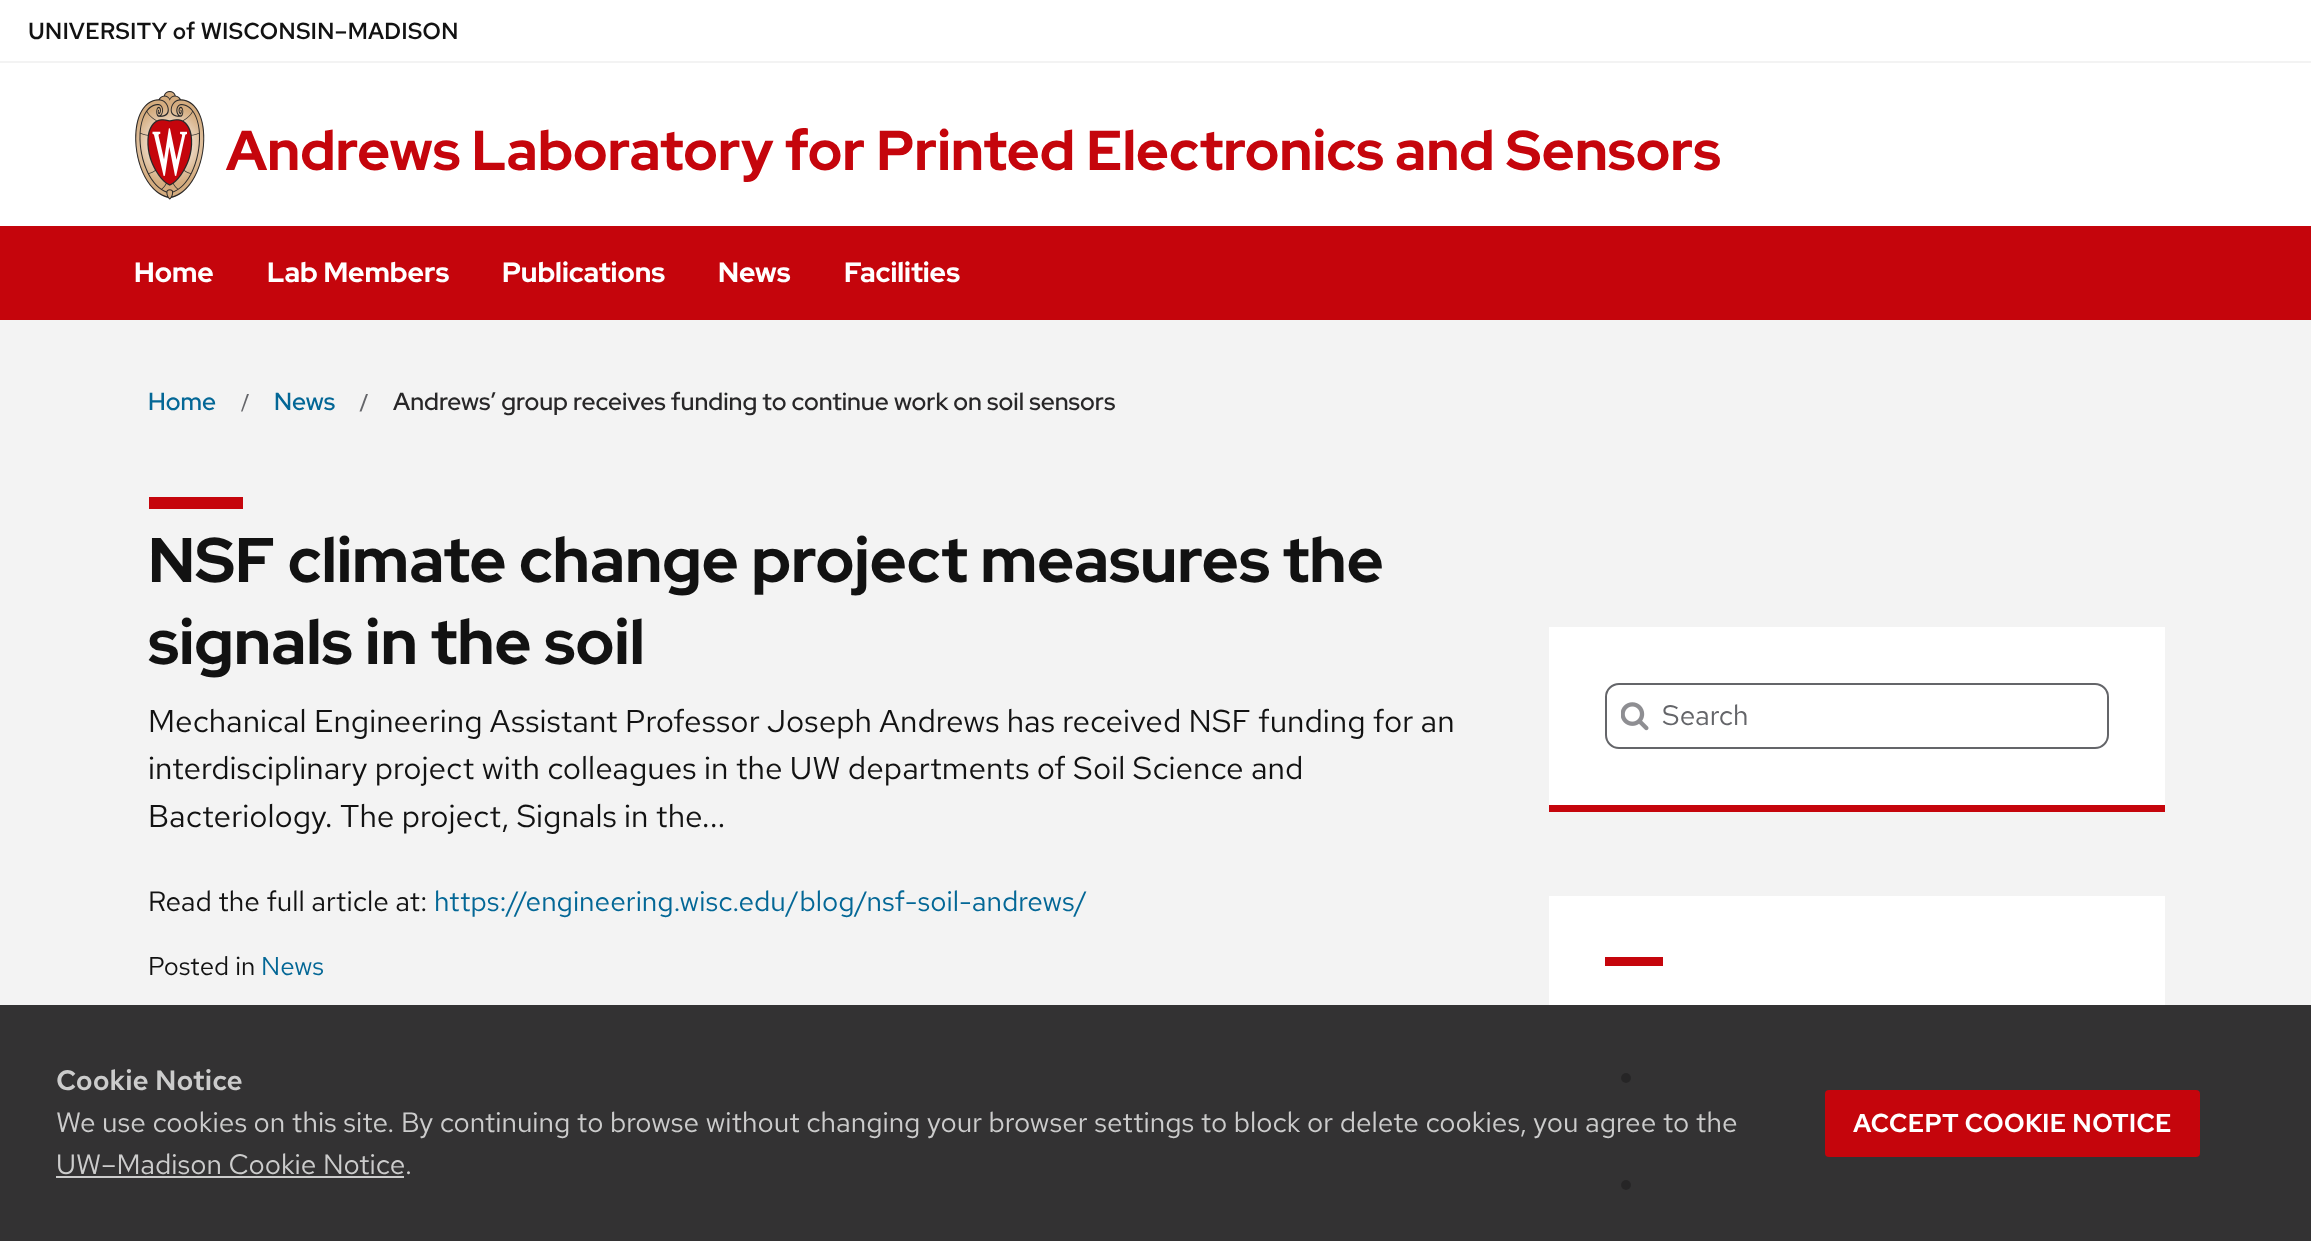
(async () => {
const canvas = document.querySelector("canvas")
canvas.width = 2311
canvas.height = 1241
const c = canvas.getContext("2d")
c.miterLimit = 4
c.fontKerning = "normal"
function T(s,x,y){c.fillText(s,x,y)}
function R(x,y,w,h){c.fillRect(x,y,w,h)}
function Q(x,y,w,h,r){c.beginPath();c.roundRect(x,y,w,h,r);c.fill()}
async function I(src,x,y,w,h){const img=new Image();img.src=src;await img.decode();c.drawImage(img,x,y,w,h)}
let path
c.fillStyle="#f3f3f3"
R(0,0,2311,1241)
c.fillStyle="#fff"
R(0,0,2311,61)
c.font="500 23.1px Red Hat Text"
c.fillStyle="#121212"
T("UNIVERSITY of WISCONSIN–MADISON",28,39)
c.fillStyle="#fff"
R(0,63,2311,163)
await I("1.png",135,91,70,109)
c.font="bold 56px Red Hat Display"
c.fillStyle="#c5050c"
T("Andrews Laboratory for Printed Electronics and Sensors",226,170)
R(0,226,2311,94)
c.font="bold 28px Red Hat Display"
c.fillStyle="#fff"
T("Home",134,282)
T("Lab Members",267,282)
T("Publications",502,282)
T("News",718,282)
T("Facilities",844,282)
c.font="500 24.5px Red Hat Display"
c.fillStyle="#036796"
T("Home",148,410)
c.fillStyle="#646569"
path = new Path2D("M247 394h2l-6.5 17.5h-1.5z")
c.fill(path)
c.fillStyle="#036796"
T("News",274,410)
c.fillStyle="#646569"
path = new Path2D("M366 394h2l-6.5 17.5h-2z")
c.fill(path)
c.fillStyle="#282728"
T("Andrews’ group receives funding to continue work on soil sensors",393,410)
c.fillStyle="#c5050c"
R(149,497,94,12)
c.font="bold 63px Red Hat Display"
c.fillStyle="#121212"
T("NSF climate change project measures the",148,582)
T("signals in the soil",148,664)
c.font="31.5px Red Hat Text"
T("Mechanical Engineering Assistant Professor Joseph Andrews has received NSF funding for an",148,732)
T("interdisciplinary project with colleagues in the UW departments of Soil Science and",148,779)
T("Bacteriology. The project, Signals in the...",148,827)
c.font="28px Red Hat Text"
T("Read the full article at:",148,911)
c.fillStyle="#036796"
T("https://engineering.wisc.edu/blog/nsf-soil-andrews/",434,911)
c.font="25.9px Red Hat Text"
c.fillStyle="#121212"
T("Posted in",148,975)
c.fillStyle="#036796"
T("News",261,975)
c.fillStyle="#fff"
R(1549,627,616,178)
c.fillStyle="#c5050c"
R(1549,805,616,7)
await I("2.png",1621,702,28,29)
c.beginPath()
c.roundRect(1606,684,502,64,13)
c.strokeStyle="#646569"
c.lineWidth=2
c.stroke()
c.font="28px Red Hat Text"
c.fillStyle="#646569"
T("Search",1662,725)
c.fillStyle="#fff"
R(1549,896,616,345)
c.fillStyle="#c5050c"
R(1605,957,58,9)
c.fillStyle="#121212"
c.beginPath()
c.arc(1626,1078,5,0,7)
c.fill()
c.beginPath()
c.arc(1626,1185,5,0,7)
c.fill()
c.fillStyle="#282728f2"
R(0,1005,2311,236)
c.font="600 28px Red Hat Text"
c.fillStyle="#ccc"
T("Cookie Notice",56,1090)
c.font="28px Red Hat Text"
T("We use cookies on this site. By continuing to browse without changing your browser settings to block or delete cookies, you agree to the",56,1132)
T("UW–Madison Cookie Notice",56,1174)
R(56,1176,348,2)
T(".",405,1174)
c.fillStyle="#c5050c"
Q(1825,1090,375,67,4)
c.font="600 25.9px Red Hat Text"
c.fillStyle="#fff"
T("ACCEPT COOKIE NOTICE",1853,1132)
})()
